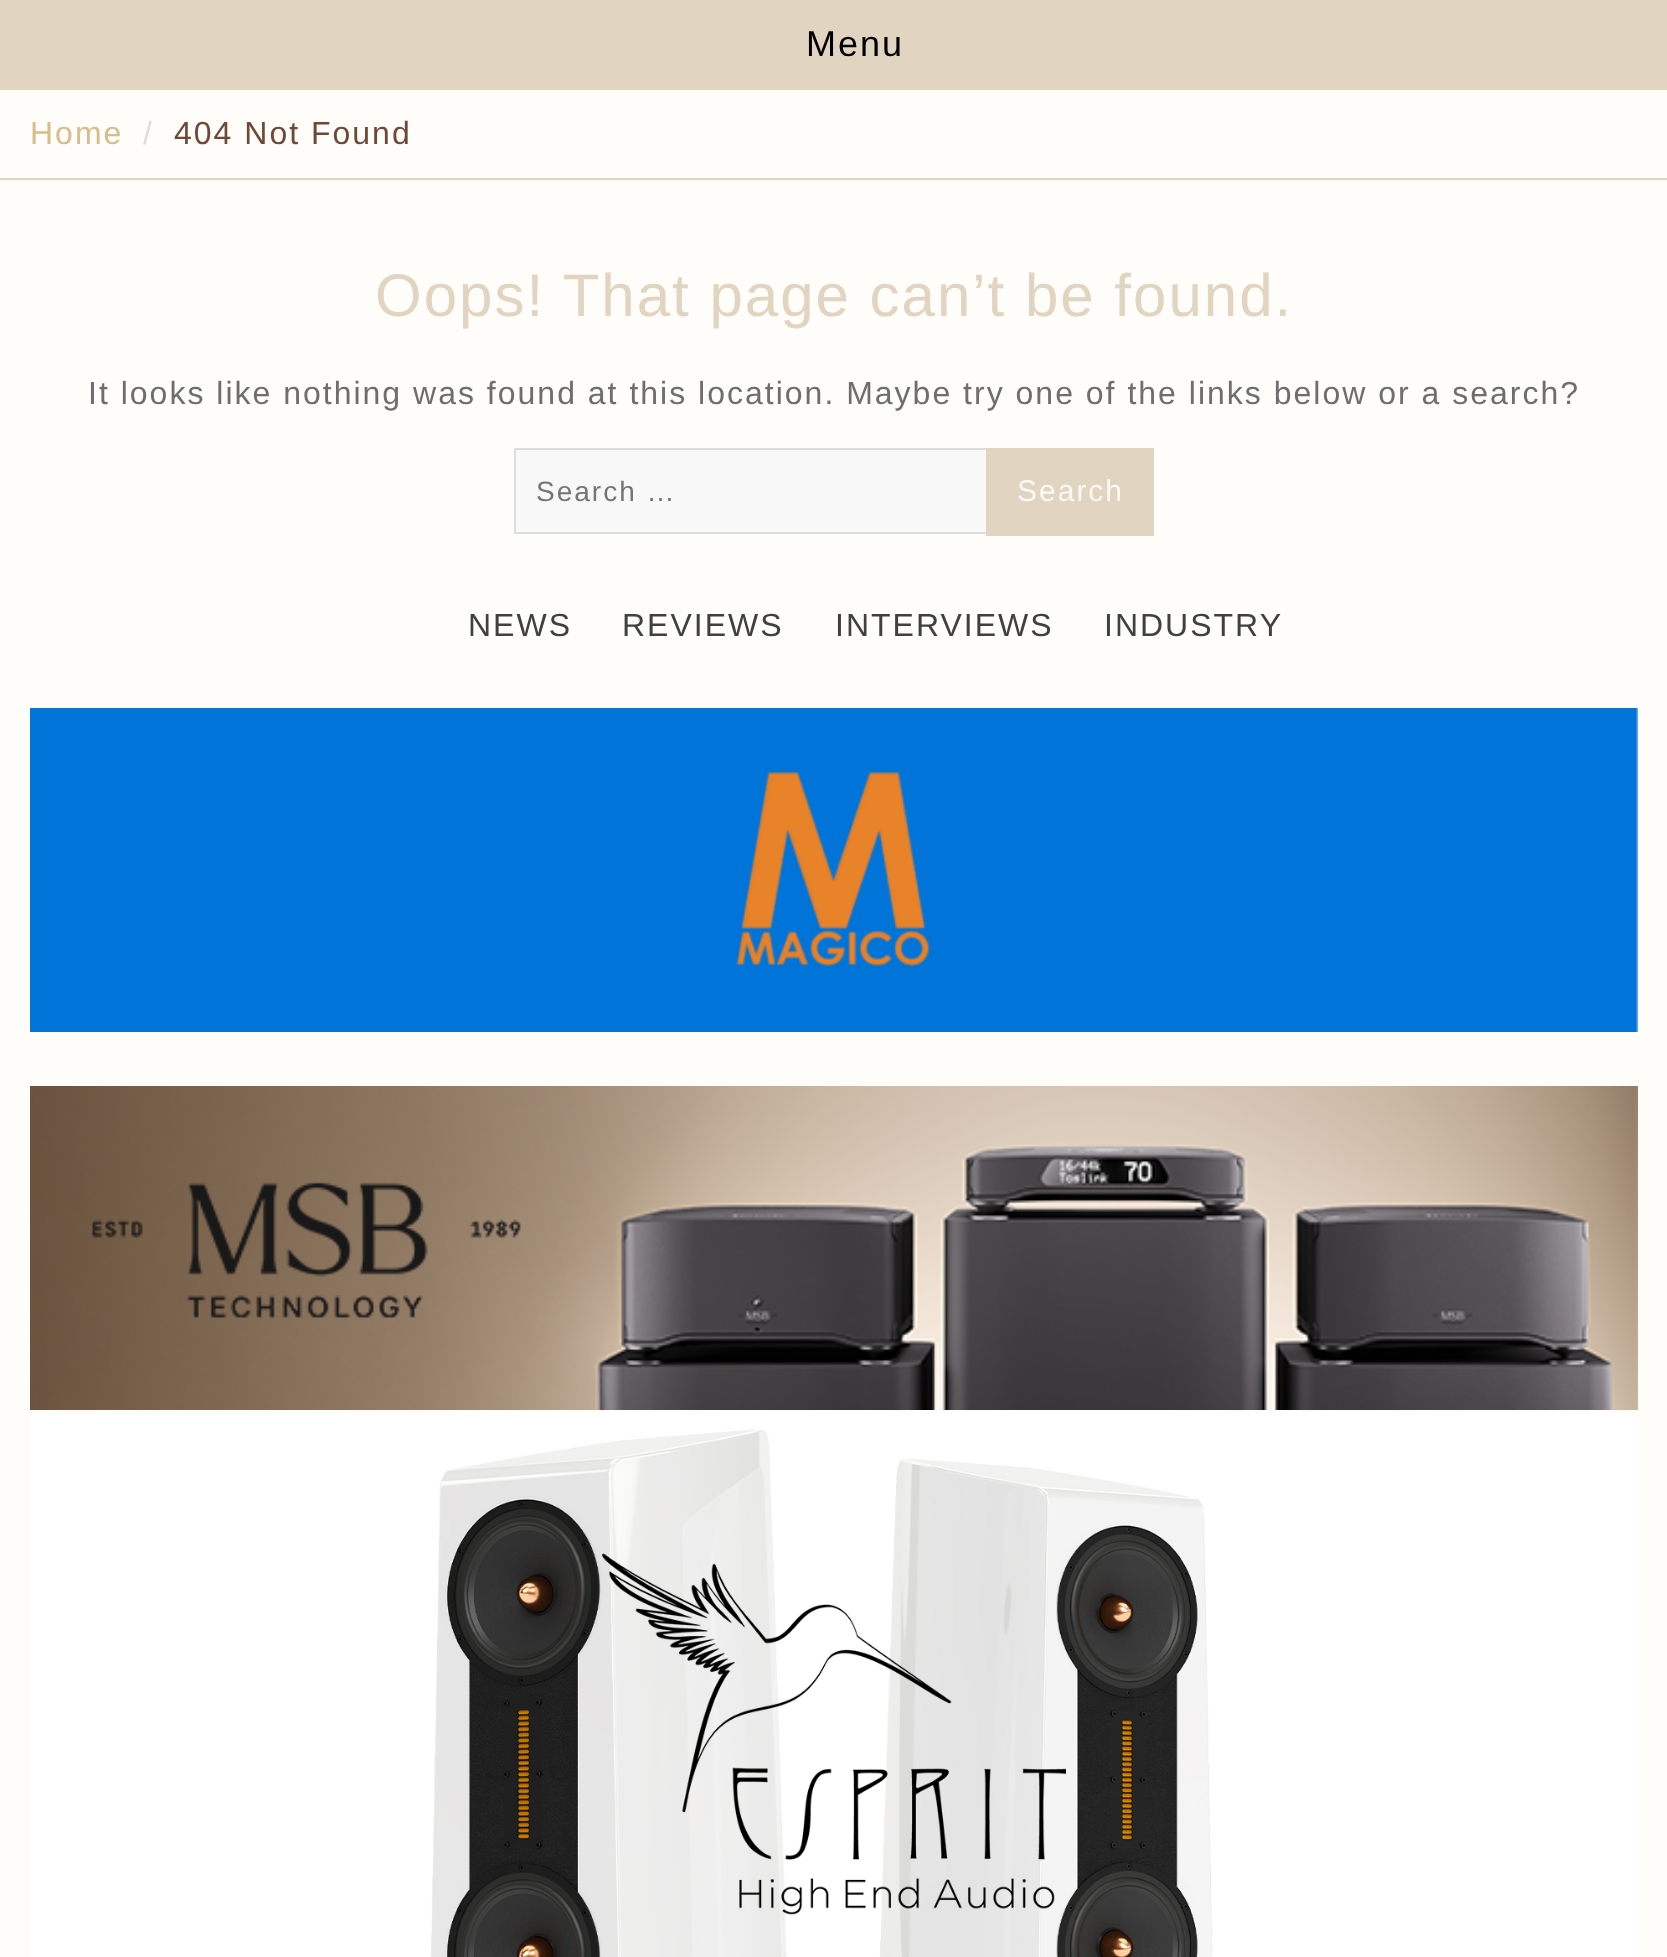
(async () => {
const canvas = document.querySelector("canvas")
canvas.width = 1667
canvas.height = 1957
const c = canvas.getContext("2d")
c.miterLimit = 4
c.fontKerning = "normal"
function T(s,x,y){c.fillText(s,x,y)}
function R(x,y,w,h){c.fillRect(x,y,w,h)}
async function I(src,x,y,w,h){const img=new Image();img.src=src;await img.decode();c.drawImage(img,x,y,w,h)}
c.fillStyle="#fffdf9"
R(0,0,1667,1957)
c.fillStyle="#e1d4c1"
R(0,0,1667,90)
c.letterSpacing="2px"
c.font="36px Liberation Sans"
c.fillStyle="#000"
T("Menu",806,56)
c.fillStyle="#e1d4c1"
R(0,178,1667,2)
c.font="32px Liberation Sans"
c.fillStyle="#d7bd8b"
T("Home",30,144)
c.fillStyle="#ddd"
T("/",143,144)
c.fillStyle="#6e493a"
T("404 Not Found",174,144)
c.font="60px Liberation Sans"
c.fillStyle="#e1d4c1"
T("Oops! That page can’t be found.",375,316)
c.font="32px Liberation Sans"
c.fillStyle="#6f6e6e"
T("It looks like nothing was found at this location. Maybe try one of the links below or a search?",88,404)
c.fillStyle="#f8f8f8"
R(516,450,470,82)
c.strokeStyle="#ddd"
c.lineWidth=2
c.strokeRect(515,449,638,84)
c.font="28px Liberation Sans"
c.fillStyle="#757575"
T("Search …",536,501)
c.fillStyle="#e1d4c1"
R(986,448,168,88)
c.font="30px Liberation Sans"
c.fillStyle="#fbf9f5"
T("Search",1017,501)
c.font="32px Liberation Sans"
c.fillStyle="#404040"
T("NEWS",468,636)
T("REVIEWS",622,636)
T("INTERVIEWS",835,636)
T("INDUSTRY",1104,636)
await I("1.png",30,708,1608,324)
await I("2.png",30,1086,1608,324)
await I("3.png",30,1412,1608,545)
})()
